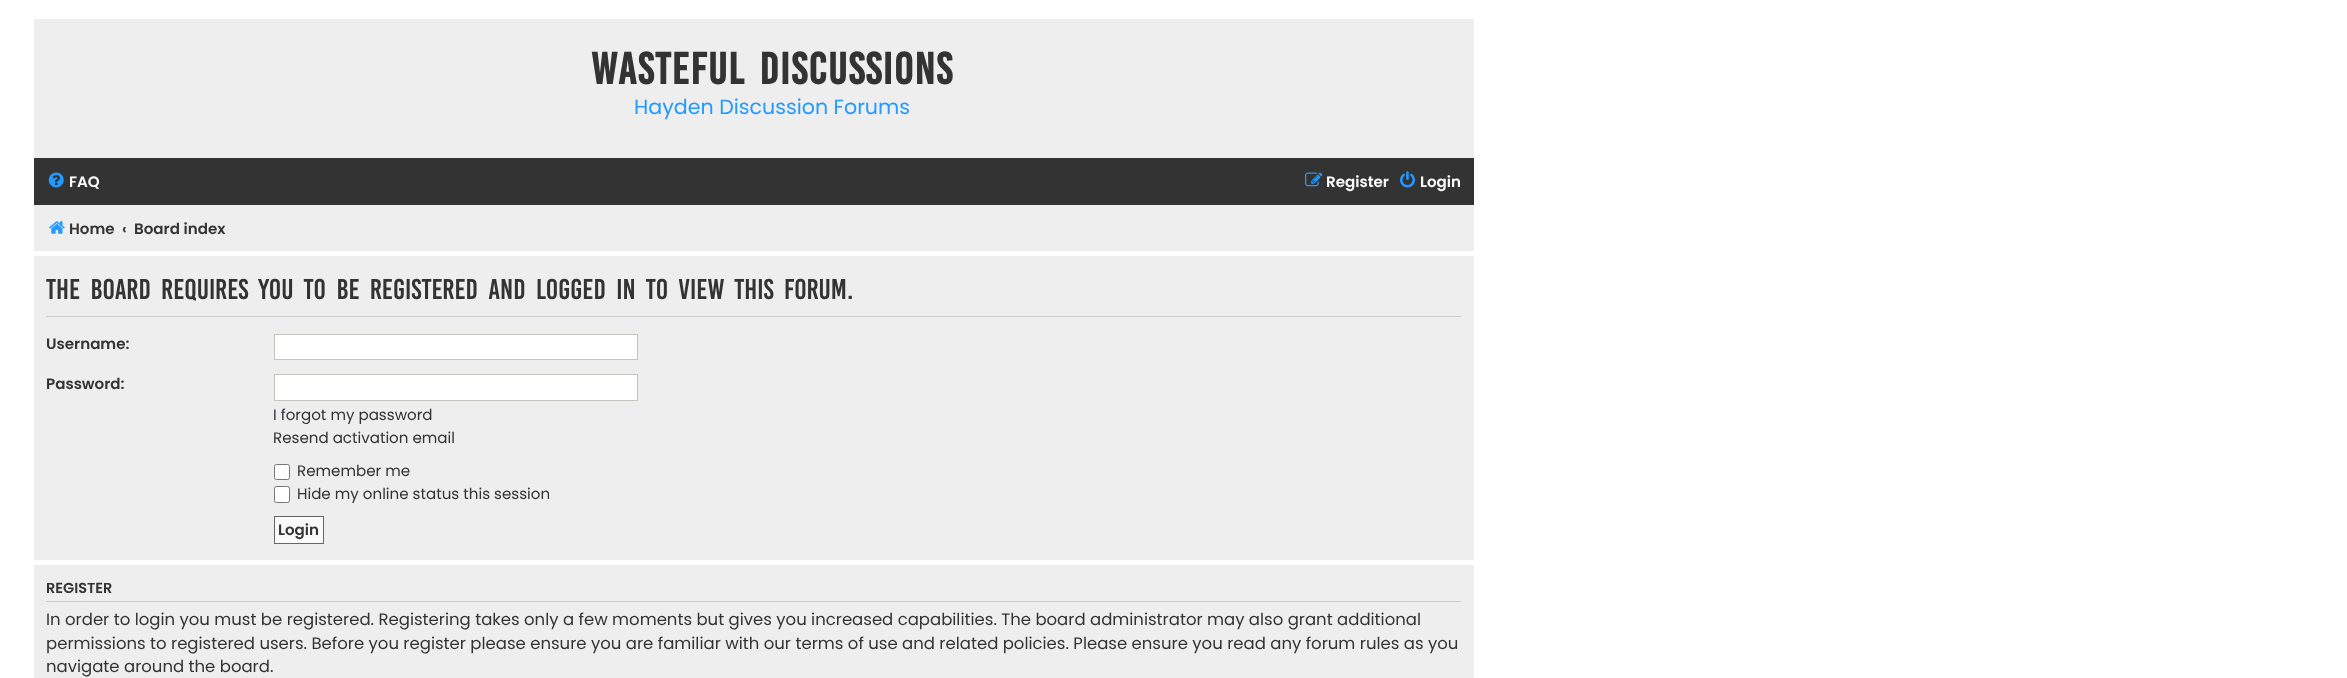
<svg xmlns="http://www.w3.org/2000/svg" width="2347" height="678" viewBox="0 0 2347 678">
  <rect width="100%" height="100%" fill="#ffffff"/>
  <rect x="34" y="19" width="1440" height="139" fill="#eeeeee"/>
  <text x="591" y="84" word-spacing="5" font-family="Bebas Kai" font-size="34.4" font-weight="bold" letter-spacing="1.25" fill="#333333">Wasteful Discussions</text>
  <text x="634" y="114" font-family="Poppins" font-size="20.6" fill="#239aff">Hayden Discussion Forums</text>
  <rect x="34" y="158" width="1440" height="47" fill="#333333"/>
  <image x="48" y="172" width="16" height="16" href="img1.png"/>
  <text x="69" y="187" font-family="Poppins" font-size="15.1" font-weight="600" fill="#ffffff">FAQ</text>
  <image x="1305" y="172" width="18" height="15" href="img2.png"/>
  <text x="1326" y="187" font-family="Poppins" font-size="15.1" font-weight="600" fill="#ffffff">Register</text>
  <image x="1400" y="171" width="15" height="17" href="img3.png"/>
  <text x="1420" y="187" font-family="Poppins" font-size="15.1" font-weight="600" fill="#ffffff">Login</text>
  <rect x="34" y="205" width="1440" height="46" fill="#eeeeee"/>
  <image x="49" y="221" width="16" height="13" href="img4.png"/>
  <text x="69" y="234" font-family="Poppins" font-size="15.1" font-weight="600" fill="#333333">Home</text>
  <text x="122" y="234" font-family="Poppins" font-size="15.1" font-weight="600" fill="#333333">‹</text>
  <text x="134" y="234" font-family="Poppins" font-size="15.1" font-weight="600" fill="#333333">Board index</text>
  <rect x="34" y="256" width="1440" height="304" fill="#eeeeee"/>
  <rect x="46" y="316" width="1415" height="1" fill="#cccccc"/>
  <text x="46" y="299" word-spacing="5" font-family="Bebas Kai" font-size="22" fill="#333333">The board requires you to be registered and logged in to view this forum.</text>
  <text x="46" y="349" font-family="Poppins" font-size="15.1" font-weight="600" fill="#333333">Username:</text>
  <rect x="274.5" y="334.5" width="363" height="25" fill="#ffffff" stroke="#c7c3bf"/>
  <text x="46" y="389" font-family="Poppins" font-size="15.1" font-weight="600" fill="#333333">Password:</text>
  <rect x="274.5" y="374.5" width="363" height="26" fill="#ffffff" stroke="#c7c3bf"/>
  <text x="273" y="420" font-family="Poppins" font-size="15.1" fill="#333333">I forgot my password</text>
  <text x="273" y="443" font-family="Poppins" font-size="15.1" fill="#333333">Resend activation email</text>
  <rect x="274.5" y="464.5" width="15" height="15" rx="2" fill="#ffffff" stroke="#767676"/>
  <text x="297" y="476" font-family="Poppins" font-size="15.1" fill="#333333">Remember me</text>
  <rect x="274.5" y="486.5" width="15" height="16" rx="2" fill="#ffffff" stroke="#767676"/>
  <text x="297" y="499" font-family="Poppins" font-size="15.1" fill="#333333">Hide my online status this session</text>
  <rect x="274.5" y="516.5" width="49" height="27" fill="#fafafa" stroke="#666666"/>
  <text x="278" y="535" font-family="Poppins" font-size="15.1" font-weight="600" fill="#333333">Login</text>
  <rect x="34" y="565" width="1440" height="113" fill="#eeeeee"/>
  <rect x="46" y="601" width="1415" height="1" fill="#cccccc"/>
  <text x="46" y="593" font-family="Poppins" font-size="14.5" font-weight="600" fill="#333333">REGISTER</text>
  <text x="46" y="625" font-family="Poppins" font-size="16.5" fill="#333333">In order to login you must be registered. Registering takes only a few moments but gives you increased capabilities. The board administrator may also grant additional</text>
  <text x="46" y="649" font-family="Poppins" font-size="16.5" fill="#333333">permissions to registered users. Before you register please ensure you are familiar with our terms of use and related policies. Please ensure you read any forum rules as you</text>
  <text x="46" y="672" font-family="Poppins" font-size="16.5" fill="#333333">navigate around the board.</text>
</svg>
